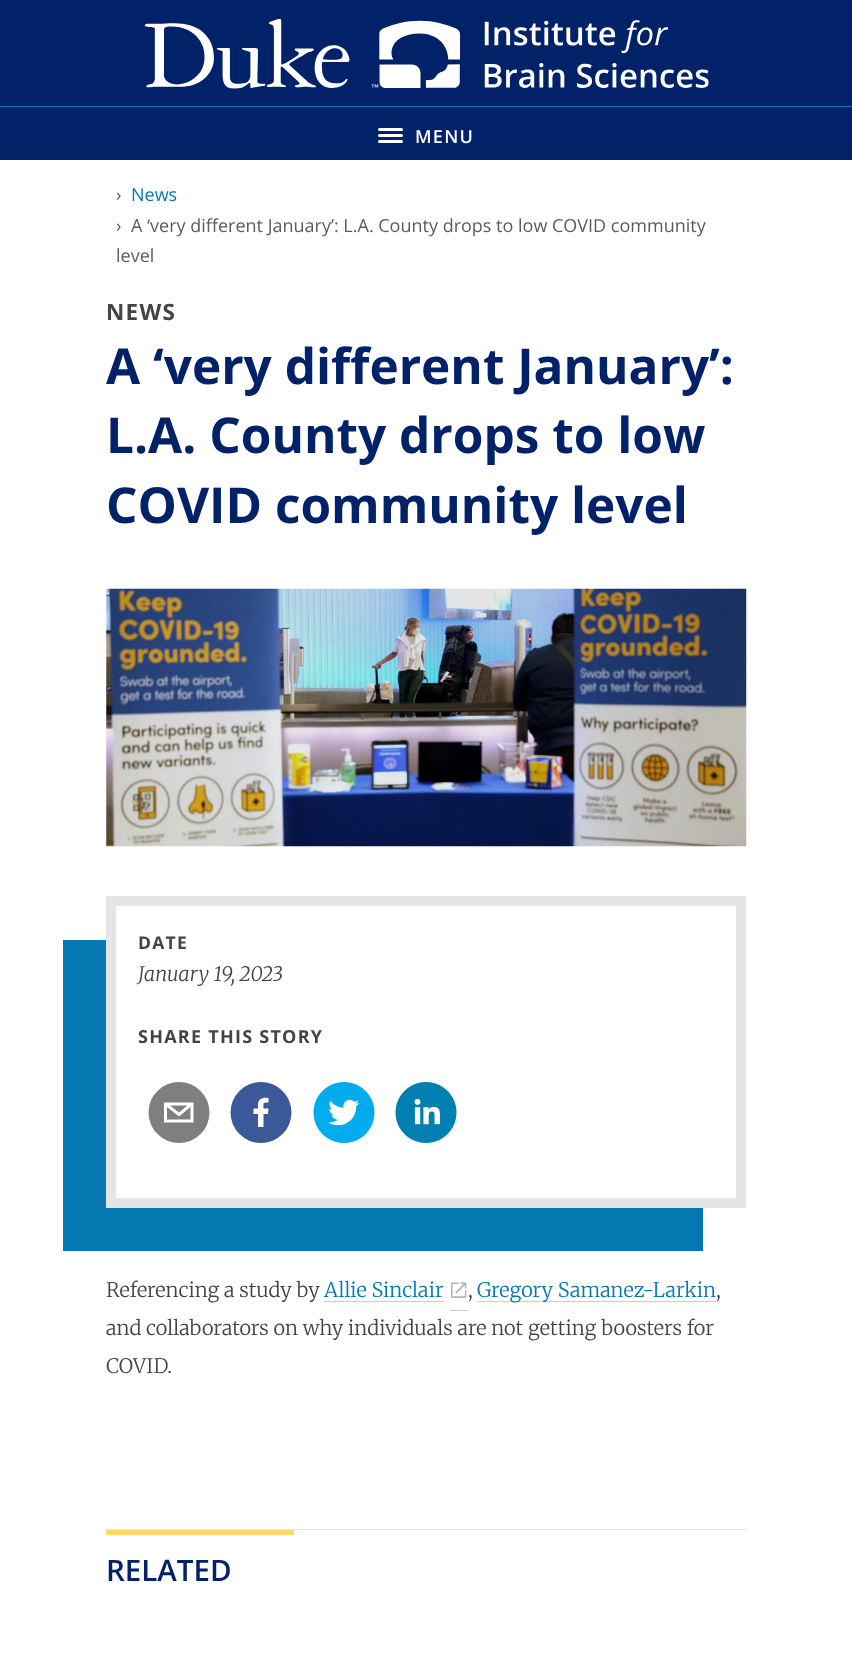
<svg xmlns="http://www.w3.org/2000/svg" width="852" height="1665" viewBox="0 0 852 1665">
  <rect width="100%" height="100%" fill="#ffffff"/>
  <rect x="0" y="0" width="852" height="160" fill="#012169"/>
  <image x="144" y="19" width="565" height="70" href="img1.png"/>
  <rect x="0" y="106" width="852" height="1" fill="#0577b1"/>
  <rect x="378" y="134" width="25" height="3" rx="1.5" fill="#ffffff"/>
  <rect x="378" y="128" width="25" height="3" rx="1.5" fill="#ffffff"/>
  <rect x="378" y="140" width="25" height="3" rx="1.5" fill="#ffffff"/>
  <text x="415" y="143" font-family="Open Sans" font-size="18" font-weight="600" letter-spacing="1.25" fill="#ffffff">MENU</text>
  <text x="116" y="201" font-family="Open Sans" font-size="18" fill="#595c5f">›</text>
  <text x="131" y="201" font-family="Open Sans" font-size="18" fill="#0577b1">News</text>
  <text x="116" y="232" font-family="Open Sans" font-size="18" fill="#595c5f">›</text>
  <text x="131" y="232" font-family="Open Sans" font-size="18" fill="#595c5f">A ‘very different January’: L.A. County drops to low COVID community</text>
  <text x="116" y="262" font-family="Open Sans" font-size="18" fill="#595c5f">level</text>
  <text x="106" y="320" font-family="Open Sans" font-size="22.5" font-weight="bold" letter-spacing="1.25" fill="#464343">NEWS</text>
  <text x="106" y="384" font-family="Open Sans" font-size="49.5" font-weight="bold" fill="#012169">A ‘very different January’:</text>
  <text x="106" y="453" font-family="Open Sans" font-size="49.5" font-weight="bold" fill="#012169">L.A. County drops to low</text>
  <text x="106" y="523" font-family="Open Sans" font-size="49.5" font-weight="bold" fill="#012169">COVID community level</text>
  <image x="106" y="588" width="641" height="259" href="img2.png"/>
  <path d="M63 940V1251H703V1208H106V940Z" fill="#0577b1"/>
  <rect x="111" y="901" width="630" height="302" fill="none" stroke="#e5e5e5" stroke-width="10"/>
  <text x="138" y="949" font-family="Open Sans" font-size="17.5" font-weight="bold" letter-spacing="1.25" fill="#464343">DATE</text>
  <text x="138" y="981" font-family="Merriweather" font-size="20" font-weight="300" font-style="italic" fill="#464343">January 19</text>
  <text x="231" y="981" font-family="Merriweather" font-size="20" font-weight="300" font-style="italic" fill="#464343">, 2023</text>
  <text x="138" y="1043" font-family="Open Sans" font-size="18" font-weight="bold" letter-spacing="1.25" fill="#464343">SHARE THIS STORY</text>
  <circle cx="179" cy="1112.5" r="30.5" fill="#7f7f7f"/>
  <path d="M164 1102.5V1122.5H193.5V1102.5ZM187.5 1105.5L179 1112.5L170 1105.5ZM167 1119.5V1107L179 1116.5L190.5 1107V1119.5Z" fill="#ffffff"/>
  <circle cx="261" cy="1112.5" r="30.5" fill="#3b5998"/>
  <path d="M263.5 1127V1114H268L268.5 1108.5H263.5C263.5 1103 262.5 1102.5 268.5 1102.5V1098C264.5 1097 259 1098 258 1103V1108.5H253.5V1114H258V1127Z" fill="#ffffff"/>
  <image x="313" y="1082" width="62" height="61" href="img3.png"/>
  <image x="395" y="1082" width="62" height="61" href="img4.png"/>
  <text x="106" y="1297" font-family="Merriweather" font-size="20" font-weight="300" fill="#464343">Referencing a study by</text>
  <rect x="324" y="1301" width="120" height="1" fill="#cccccc"/>
  <rect x="450" y="1310" width="18" height="1" fill="#cccccc"/>
  <text x="324" y="1297" font-family="Merriweather" font-size="20" font-weight="300" fill="#0577b1">Allie Sinclair</text>
  <image x="451" y="1282" width="16" height="16" href="img5.png"/>
  <text x="468" y="1297" font-family="Merriweather" font-size="20" font-weight="300" fill="#464343">,</text>
  <rect x="478" y="1301" width="238" height="1" fill="#cccccc"/>
  <text x="477" y="1297" font-family="Merriweather" font-size="20" font-weight="300" fill="#0577b1">Gregory Samanez-Larkin</text>
  <text x="716" y="1297" font-family="Merriweather" font-size="20" font-weight="300" fill="#464343">,</text>
  <text x="106" y="1335" font-family="Merriweather" font-size="20" font-weight="300" fill="#464343">and collaborators on why individuals are not getting boosters for</text>
  <text x="106" y="1373" font-family="Merriweather" font-size="20" font-weight="300" fill="#464343">COVID.</text>
  <rect x="106" y="1529" width="640" height="1" fill="#e5e5e5"/>
  <rect x="106" y="1530" width="188" height="5" fill="#ffd960"/>
  <text x="106" y="1581" font-family="Open Sans" font-size="29.5" font-weight="600" fill="#012169">RELATED</text>
</svg>
